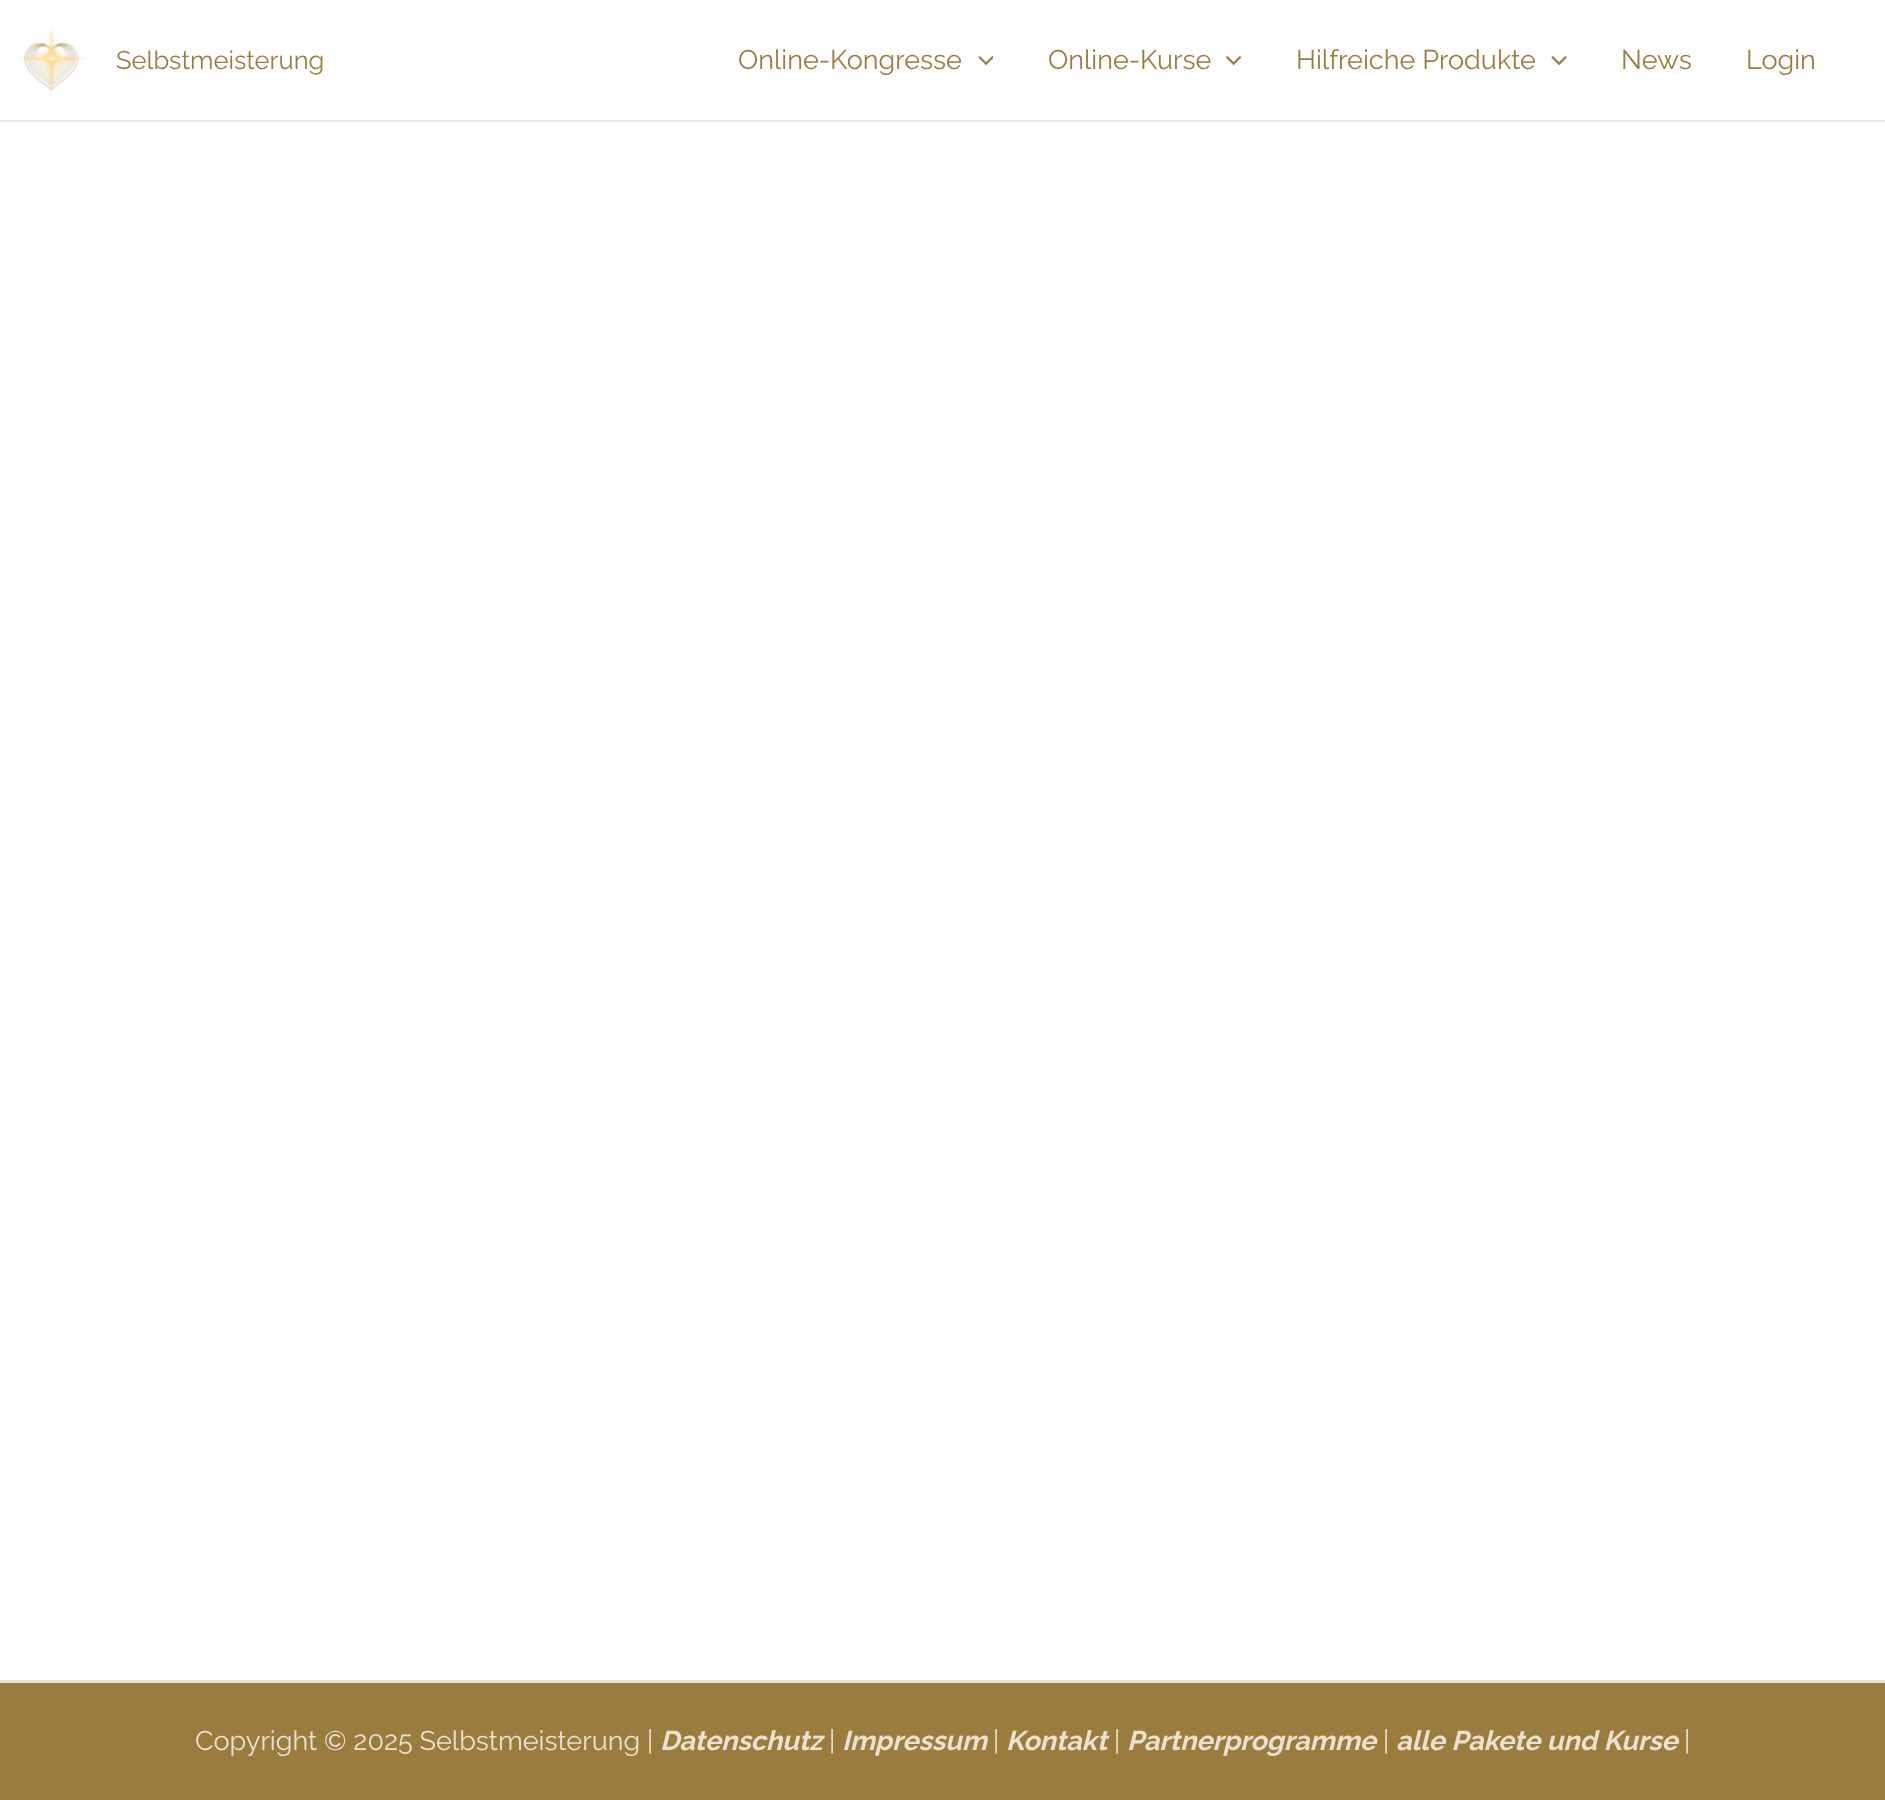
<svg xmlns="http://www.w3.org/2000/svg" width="1885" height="1800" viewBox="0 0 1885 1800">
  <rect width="100%" height="100%" fill="#ffffff"/>
  <rect x="0" y="120" width="1885" height="2" fill="#eaeaea"/>
  <image x="15" y="21" width="74" height="76" href="img1.png"/>
  <text x="116" y="69" font-family="Raleway" font-size="25.5" fill="#9a7c3f">Selbstmeisterung</text>
  <text x="738" y="69" font-family="Raleway" font-size="27" fill="#9a7c3f">Online-Kongresse</text>
  <image x="978" y="56" width="15" height="10" href="img2.png"/>
  <text x="1048" y="69" font-family="Raleway" font-size="27" fill="#9a7c3f">Online-Kurse</text>
  <image x="1226" y="56" width="16" height="10" href="img3.png"/>
  <text x="1296" y="69" font-family="Raleway" font-size="27" fill="#9a7c3f">Hilfreiche Produkte</text>
  <image x="1551" y="56" width="16" height="10" href="img4.png"/>
  <text x="1621" y="69" font-family="Raleway" font-size="27" fill="#9a7c3f">News</text>
  <text x="1746" y="69" font-family="Raleway" font-size="27" fill="#9a7c3f">Login</text>
  <rect x="0" y="1683" width="1885" height="117" fill="#9a7c3f"/>
  <rect x="0" y="1680" width="1885" height="3" fill="#ebe1cf"/>
  <text x="195" y="1750" font-family="Raleway" font-size="27" fill="#ebe1cf">Copyright © 2025 Selbstmeisterung |</text>
  <text x="660" y="1750" font-family="Raleway" font-size="27" font-weight="bold" font-style="italic" fill="#ebe1cf">Datenschutz</text>
  <text x="829" y="1750" font-family="Raleway" font-size="27" fill="#ebe1cf">|</text>
  <text x="842" y="1750" font-family="Raleway" font-size="27" font-weight="bold" font-style="italic" fill="#ebe1cf">Impressum</text>
  <text x="993" y="1750" font-family="Raleway" font-size="27" fill="#ebe1cf">|</text>
  <text x="1006" y="1750" font-family="Raleway" font-size="27" font-weight="bold" font-style="italic" fill="#ebe1cf">Kontakt</text>
  <text x="1114" y="1750" font-family="Raleway" font-size="27" fill="#ebe1cf">|</text>
  <text x="1127" y="1750" font-family="Raleway" font-size="27" font-weight="bold" font-style="italic" fill="#ebe1cf">Partnerprogramme</text>
  <text x="1383" y="1750" font-family="Raleway" font-size="27" fill="#ebe1cf">|</text>
  <text x="1396" y="1750" font-family="Raleway" font-size="27" font-weight="bold" font-style="italic" fill="#ebe1cf">alle Pakete und Kurse</text>
  <text x="1684" y="1750" font-family="Raleway" font-size="27" fill="#ebe1cf">|</text>
</svg>
